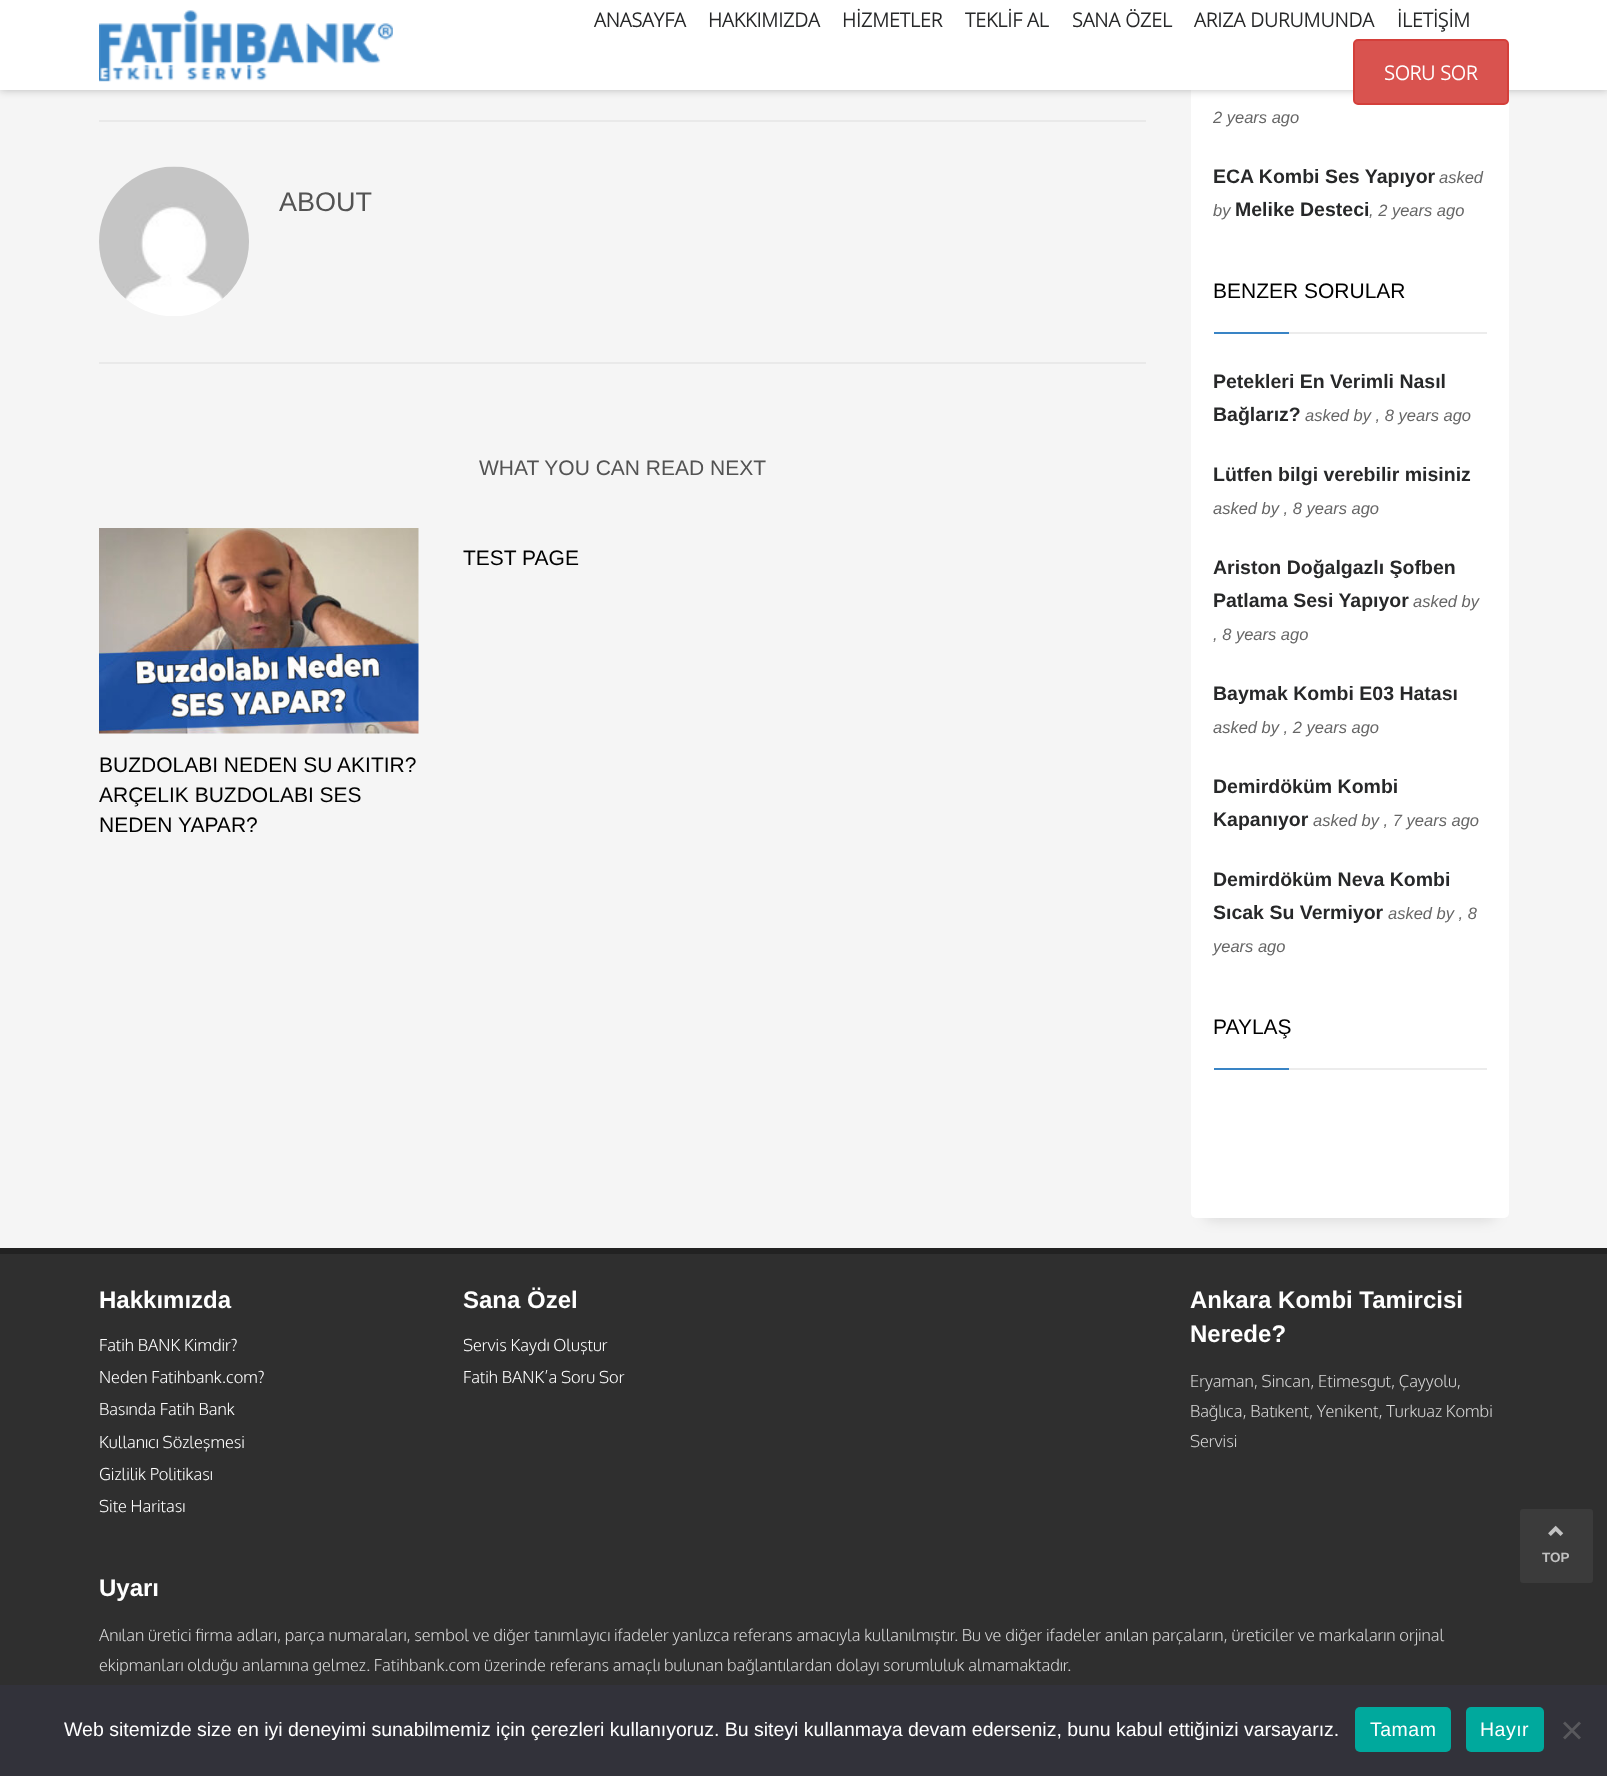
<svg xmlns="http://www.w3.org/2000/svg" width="1607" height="1776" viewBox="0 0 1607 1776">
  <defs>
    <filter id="blur1" x="-50%" y="-200%" width="200%" height="500%"><feGaussianBlur stdDeviation="7.5"/></filter>
    <filter id="blur2" x="-50%" y="-200%" width="200%" height="500%"><feGaussianBlur stdDeviation="4"/></filter>
    <clipPath id="clip1"><rect x="464" y="1332" width="318" height="66"/></clipPath>
  </defs>
  <rect width="100%" height="100%" fill="#f5f5f5"/>
  <rect x="1206" y="-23" width="288" height="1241" fill="#000000" fill-opacity="0.15" filter="url(#blur1)"/>
  <rect x="1191" y="-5" width="318" height="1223" rx="5" fill="#ffffff"/>
  <rect x="0" y="0" width="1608" height="90" fill="#000000" fill-opacity="0.25" filter="url(#blur2)"/>
  <rect x="0" y="0" width="1607" height="90" fill="#ffffff"/>
  <image x="99" y="10" width="294" height="72" href="img1.png"/>
  <text x="594" y="27" font-family="Open Sans" font-size="19.5" font-weight="bold" fill="#272829">ANASAYFA</text>
  <text x="708" y="27" font-family="Open Sans" font-size="19.5" font-weight="bold" fill="#272829">HAKKIMIZDA</text>
  <text x="842" y="27" font-family="Open Sans" font-size="19.5" font-weight="bold" fill="#272829">HİZMETLER</text>
  <text x="965" y="27" font-family="Open Sans" font-size="19.5" font-weight="bold" fill="#272829">TEKLİF AL</text>
  <text x="1072" y="27" font-family="Open Sans" font-size="19.5" font-weight="bold" fill="#272829">SANA ÖZEL</text>
  <text x="1194" y="27" font-family="Open Sans" font-size="19.5" font-weight="bold" fill="#272829">ARIZA DURUMUNDA</text>
  <text x="1397" y="27" font-family="Open Sans" font-size="19.5" font-weight="bold" fill="#272829">İLETİŞİM</text>
  <rect x="1354" y="40" width="154" height="64" rx="4" fill="#d9534f" stroke="#d43f3a" stroke-width="2"/>
  <text x="1384" y="80" font-family="Open Sans" font-size="19.5" font-weight="bold" fill="#ffffff">SORU SOR</text>
  <rect x="99" y="120" width="1047" height="2" fill="#e9e9e9"/>
  <rect x="99" y="362" width="1047" height="2" fill="#e9e9e9"/>
  <image x="99" y="166" width="150" height="150" href="img2.png"/>
  <text x="279" y="211" font-family="Liberation Sans" font-size="27" fill="#535353">ABOUT</text>
  <text x="479" y="475" font-family="Liberation Sans" font-size="21" fill="#535353">WHAT YOU CAN READ NEXT</text>
  <text x="463" y="565" font-family="Liberation Sans" font-size="21" fill="#000000">TEST PAGE</text>
  <image x="99" y="528" width="320" height="206" href="img3.png"/>
  <text x="99" y="772" font-family="Liberation Sans" font-size="21" fill="#000000">BUZDOLABI NEDEN SU AKITIR?</text>
  <text x="99" y="802" font-family="Liberation Sans" font-size="21" fill="#000000">ARÇELIK BUZDOLABI SES</text>
  <text x="99" y="832" font-family="Liberation Sans" font-size="21" fill="#000000">NEDEN YAPAR?</text>
  <text x="1213" y="123" font-family="Liberation Sans" font-size="16.5" font-style="italic" fill="#666666">2 years ago</text>
  <text x="1213" y="183" font-family="Liberation Sans" font-size="19.5" font-weight="bold" fill="#272829">ECA Kombi Ses Yapıyor</text>
  <text x="1439" y="183" font-family="Liberation Sans" font-size="16.5" font-style="italic" fill="#666666">asked</text>
  <text x="1213" y="216" font-family="Liberation Sans" font-size="16.5" font-style="italic" fill="#666666">by</text>
  <text x="1235" y="216" font-family="Liberation Sans" font-size="19.5" font-weight="bold" fill="#272829">Melike Desteci</text>
  <text x="1369" y="216" font-family="Liberation Sans" font-size="16.5" font-style="italic" fill="#666666">, 2 years ago</text>
  <text x="1213" y="298" font-family="Liberation Sans" font-size="21" fill="#000000">BENZER SORULAR</text>
  <rect x="1214" y="332" width="75" height="2" fill="#3984c5"/>
  <rect x="1289" y="332" width="198" height="2" fill="#ececec"/>
  <text x="1213" y="388" font-family="Liberation Sans" font-size="19.5" font-weight="bold" fill="#272829">Petekleri En Verimli Nasıl</text>
  <text x="1213" y="421" font-family="Liberation Sans" font-size="19.5" font-weight="bold" fill="#272829">Bağlarız?</text>
  <text x="1305" y="421" font-family="Liberation Sans" font-size="16.5" font-style="italic" fill="#666666">asked by , 8 years ago</text>
  <text x="1213" y="481" font-family="Liberation Sans" font-size="19.5" font-weight="bold" fill="#272829">Lütfen bilgi verebilir misiniz</text>
  <text x="1213" y="514" font-family="Liberation Sans" font-size="16.5" font-style="italic" fill="#666666">asked by , 8 years ago</text>
  <text x="1213" y="574" font-family="Liberation Sans" font-size="19.5" font-weight="bold" fill="#272829">Ariston Doğalgazlı Şofben</text>
  <text x="1213" y="607" font-family="Liberation Sans" font-size="19.5" font-weight="bold" fill="#272829">Patlama Sesi Yapıyor</text>
  <text x="1413" y="607" font-family="Liberation Sans" font-size="16.5" font-style="italic" fill="#666666">asked by</text>
  <text x="1213" y="640" font-family="Liberation Sans" font-size="16.5" font-style="italic" fill="#666666">, 8 years ago</text>
  <text x="1213" y="700" font-family="Liberation Sans" font-size="19.5" font-weight="bold" fill="#272829">Baymak Kombi E03 Hatası</text>
  <text x="1213" y="733" font-family="Liberation Sans" font-size="16.5" font-style="italic" fill="#666666">asked by , 2 years ago</text>
  <text x="1213" y="793" font-family="Liberation Sans" font-size="19.5" font-weight="bold" fill="#272829">Demirdöküm Kombi</text>
  <text x="1213" y="826" font-family="Liberation Sans" font-size="19.5" font-weight="bold" fill="#272829">Kapanıyor</text>
  <text x="1313" y="826" font-family="Liberation Sans" font-size="16.5" font-style="italic" fill="#666666">asked by , 7 years ago</text>
  <text x="1213" y="886" font-family="Liberation Sans" font-size="19.5" font-weight="bold" fill="#272829">Demirdöküm Neva Kombi</text>
  <text x="1213" y="919" font-family="Liberation Sans" font-size="19.5" font-weight="bold" fill="#272829">Sıcak Su Vermiyor</text>
  <text x="1388" y="919" font-family="Liberation Sans" font-size="16.5" font-style="italic" fill="#666666">asked by , 8</text>
  <text x="1213" y="952" font-family="Liberation Sans" font-size="16.5" font-style="italic" fill="#666666">years ago</text>
  <text x="1213" y="1034" font-family="Liberation Sans" font-size="21" fill="#000000">PAYLAŞ</text>
  <rect x="1214" y="1068" width="75" height="2" fill="#3984c5"/>
  <rect x="1289" y="1068" width="198" height="2" fill="#ececec"/>
  <rect x="0" y="1254" width="1607" height="431" fill="#2f2f2f"/>
  <rect x="0" y="1248" width="1607" height="6" fill="#222222"/>
  <text x="99" y="1308" font-family="Liberation Sans" font-size="24" font-weight="bold" fill="#ffffff">Hakkımızda</text>
  <text x="99" y="1351" font-family="Oxygen" font-size="16.5" font-weight="300" fill="#ffffff">Fatih BANK Kimdir?</text>
  <text x="99" y="1383" font-family="Oxygen" font-size="16.5" font-weight="300" fill="#ffffff">Neden Fatihbank.com?</text>
  <text x="99" y="1415" font-family="Oxygen" font-size="16.5" font-weight="300" fill="#ffffff">Basında Fatih Bank</text>
  <text x="99" y="1448" font-family="Oxygen" font-size="16.5" font-weight="300" fill="#ffffff">Kullanıcı Sözleşmesi</text>
  <text x="99" y="1480" font-family="Oxygen" font-size="16.5" font-weight="300" fill="#ffffff">Gizlilik Politikası</text>
  <text x="99" y="1512" font-family="Oxygen" font-size="16.5" font-weight="300" fill="#ffffff">Site Haritası</text>
  <text x="463" y="1308" font-family="Liberation Sans" font-size="24" font-weight="bold" fill="#ffffff">Sana Özel</text>
  <g clip-path="url(#clip1)">
    <text x="463" y="1351" font-family="Oxygen" font-size="16.5" font-weight="300" fill="#ffffff">Servis Kaydı Oluştur</text>
  </g>
  <text x="463" y="1383" font-family="Oxygen" font-size="16.5" font-weight="300" fill="#ffffff">Fatih BANK’a Soru Sor</text>
  <text x="1190" y="1308" font-family="Liberation Sans" font-size="24" font-weight="bold" fill="#ffffff">Ankara Kombi Tamircisi</text>
  <text x="1190" y="1342" font-family="Liberation Sans" font-size="24" font-weight="bold" fill="#ffffff">Nerede?</text>
  <text x="1190" y="1387" font-family="Oxygen" font-size="16.5" font-weight="300" fill="#d5d5d5">Eryaman, Sincan, Etimesgut, Çayyolu,</text>
  <text x="1190" y="1417" font-family="Oxygen" font-size="16.5" font-weight="300" fill="#d5d5d5">Bağlıca, Batıkent, Yenikent, Turkuaz Kombi</text>
  <text x="1190" y="1447" font-family="Oxygen" font-size="16.5" font-weight="300" fill="#d5d5d5">Servisi</text>
  <text x="99" y="1596" font-family="Liberation Sans" font-size="24" font-weight="bold" fill="#ffffff">Uyarı</text>
  <text x="99" y="1641" font-family="Oxygen" font-size="16.5" font-weight="300" fill="#d5d5d5">Anılan üretici firma adları, parça numaraları, sembol ve diğer tanımlayıcı ifadeler yanlızca referans amacıyla kullanılmıştır. Bu ve diğer ifadeler anılan parçaların, üreticiler ve markaların orjinal</text>
  <text x="99" y="1671" font-family="Oxygen" font-size="16.5" font-weight="300" fill="#d5d5d5">ekipmanları olduğu anlamına gelmez. Fatihbank.com üzerinde referans amaçlı bulunan bağlantılardan dolayı sorumluluk almamaktadır.</text>
  <rect x="1520" y="1509" width="73" height="74" rx="3" fill="#3b3b3b"/>
  <image x="1548" y="1525" width="16" height="11" href="img4.png"/>
  <text x="1542" y="1562" font-family="Liberation Sans" font-size="13.5" font-weight="bold" fill="#c1c1c1">TOP</text>
  <rect x="0" y="1685" width="1607" height="91" fill="#32323a"/>
  <text x="64" y="1736" font-family="Liberation Sans" font-size="19.5" fill="#ffffff">Web sitemizde size en iyi deneyimi sunabilmemiz için çerezleri kullanıyoruz. Bu siteyi kullanmaya devam ederseniz, bunu kabul ettiğinizi varsayarız.</text>
  <rect x="1355" y="1707" width="96" height="45" rx="5" fill="#00a99d"/>
  <text x="1370" y="1736" font-family="Liberation Sans" font-size="19.5" letter-spacing="0.5" fill="#ffffff">Tamam</text>
  <rect x="1466" y="1707" width="78" height="45" rx="5" fill="#00a99d"/>
  <text x="1480" y="1736" font-family="Liberation Sans" font-size="19.5" letter-spacing="0.5" fill="#ffffff">Hayır</text>
  <path d="M1579 1721.5L1581 1723.5L1565 1739.5L1563 1737.5Z" fill="#59595d"/>
  <path d="M1563 1723.5L1565 1721.5L1581 1737.5L1579 1739.5Z" fill="#59595d"/>
</svg>
